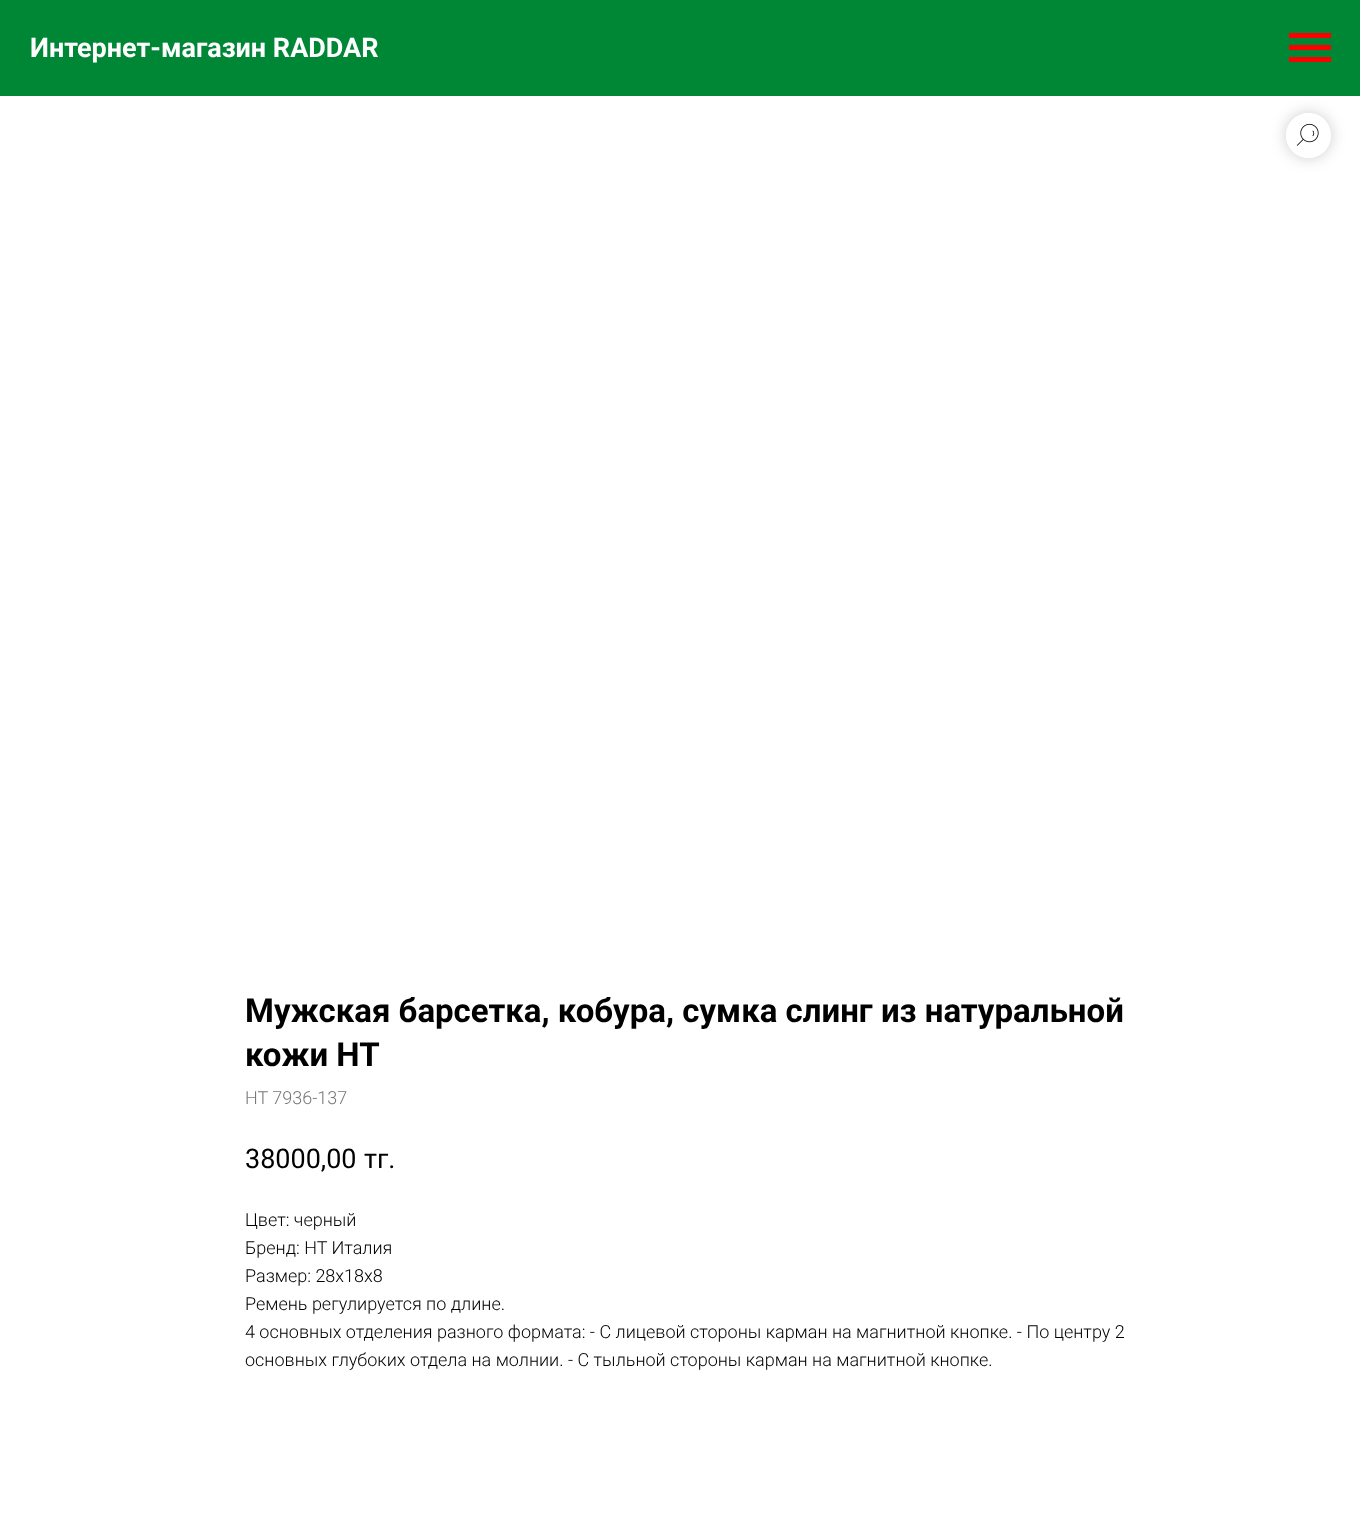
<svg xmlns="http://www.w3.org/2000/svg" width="1360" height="1539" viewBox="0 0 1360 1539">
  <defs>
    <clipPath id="clip1"><path d="M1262 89H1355V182H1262ZM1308.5 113C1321 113 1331 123 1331 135.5C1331 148 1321 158 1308.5 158C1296 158 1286 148 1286 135.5C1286 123 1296 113 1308.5 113Z" clip-rule="evenodd"/></clipPath>
    <filter id="blur1" x="-50%" y="-200%" width="200%" height="500%"><feGaussianBlur stdDeviation="7.5"/></filter>
  </defs>
  <rect width="100%" height="100%" fill="#ffffff"/>
  <rect x="0" y="0" width="1360" height="96" fill="#008736"/>
  <text x="30" y="57" font-family="Roboto" font-size="27" font-weight="bold" fill="#ffffff">Интернет-магазин RADDAR</text>
  <rect x="1289" y="33" width="42" height="5" fill="#ff0000"/>
  <rect x="1289" y="45" width="42" height="5" fill="#ff0000"/>
  <rect x="1289" y="57" width="42" height="5" fill="#ff0000"/>
  <g clip-path="url(#clip1)">
    <rect x="1286" y="113" width="45" height="45" rx="22.5" fill="#000000" fill-opacity="0.2" filter="url(#blur1)"/>
  </g>
  <circle cx="1308.5" cy="135.5" r="22.5" fill="#ffffff" fill-opacity="0.8"/>
  <image x="1296" y="123" width="23" height="23" href="img1.png"/>
  <text x="245" y="1022" font-family="Roboto" font-size="33" font-weight="bold" fill="#000000">Мужская барсетка, кобура, сумка слинг из натуральной</text>
  <text x="245" y="1066" font-family="Roboto" font-size="33" font-weight="bold" fill="#000000">кожи НТ</text>
  <text x="245" y="1104" font-family="Roboto" font-size="18" font-weight="300" fill="#777777">HT 7936-137</text>
  <text x="245" y="1168" font-family="Roboto" font-size="27" fill="#000000">38000,00</text>
  <text x="364" y="1168" font-family="Roboto" font-size="27" fill="#000000">тг.</text>
  <text x="245" y="1226" font-family="Roboto" font-size="18" font-weight="300" fill="#000000">Цвет: черный</text>
  <text x="245" y="1254" font-family="Roboto" font-size="18" font-weight="300" fill="#000000">Бренд: HT Италия</text>
  <text x="245" y="1282" font-family="Roboto" font-size="18" font-weight="300" fill="#000000">Размер: 28х18х8</text>
  <text x="245" y="1310" font-family="Roboto" font-size="18" font-weight="300" fill="#000000">Ремень регулируется по длине.</text>
  <text x="245" y="1338" font-family="Roboto" font-size="18" font-weight="300" fill="#000000">4 основных отделения разного формата: - С лицевой стороны карман на магнитной кнопке. - По центру 2</text>
  <text x="245" y="1366" font-family="Roboto" font-size="18" font-weight="300" fill="#000000">основных глубоких отдела на молнии. - С тыльной стороны карман на магнитной кнопке.</text>
</svg>
